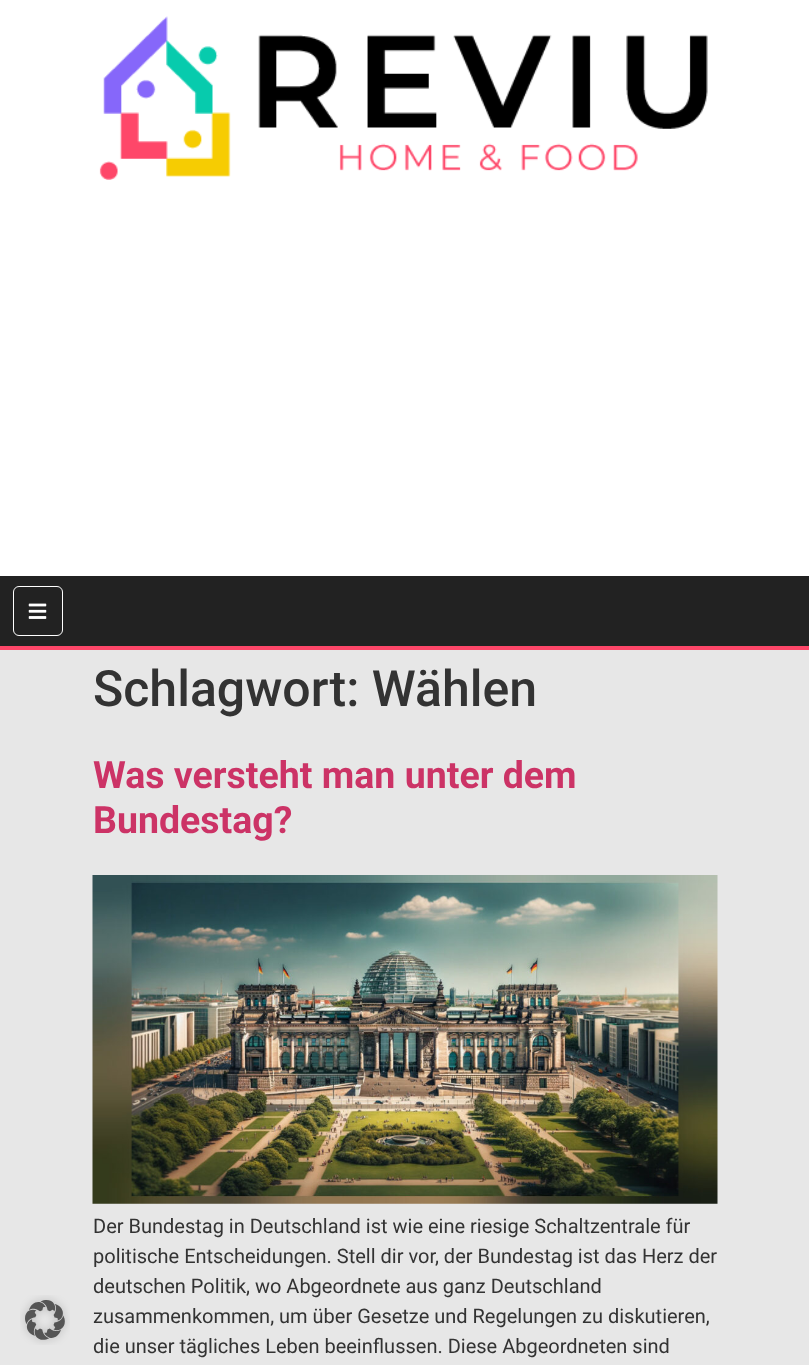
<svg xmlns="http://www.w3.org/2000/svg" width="809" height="1365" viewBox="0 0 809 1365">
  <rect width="100%" height="100%" fill="#e7e7e7"/>
  <rect x="0" y="0" width="809" height="576" fill="#ffffff"/>
  <image x="99" y="16" width="609" height="164" href="img1.png"/>
  <rect x="0" y="576" width="809" height="70" fill="#222222"/>
  <rect x="0" y="646" width="809" height="4" fill="#fe4769"/>
  <rect x="13.5" y="586.5" width="49" height="49" rx="5.5" fill="none" stroke="#ffffff"/>
  <image x="28" y="603" width="19" height="16" href="img2.png"/>
  <image x="20" y="1295" width="50" height="50" href="img3.png"/>
  <text x="93" y="706" font-family="Roboto" font-size="50" font-weight="500" fill="#333333">Schlagwort: Wählen</text>
  <text x="93" y="788" font-family="Roboto" font-size="37.5" font-weight="bold" fill="#cc3366">Was versteht man unter dem</text>
  <text x="93" y="833" font-family="Roboto" font-size="37.5" font-weight="bold" fill="#cc3366">Bundestag?</text>
  <image x="92" y="875" width="626" height="329" href="img4.png"/>
  <text x="93" y="1233" font-family="Roboto" font-size="20" fill="#333333">Der Bundestag in Deutschland ist wie eine riesige Schaltzentrale für</text>
  <text x="93" y="1263" font-family="Roboto" font-size="20" fill="#333333">politische Entscheidungen. Stell dir vor, der Bundestag ist das Herz der</text>
  <text x="93" y="1293" font-family="Roboto" font-size="20" fill="#333333">deutschen Politik, wo Abgeordnete aus ganz Deutschland</text>
  <text x="93" y="1323" font-family="Roboto" font-size="20" fill="#333333">zusammenkommen, um über Gesetze und Regelungen zu diskutieren,</text>
  <text x="93" y="1353" font-family="Roboto" font-size="20" fill="#333333">die unser tägliches Leben beeinflussen. Diese Abgeordneten sind</text>
</svg>
